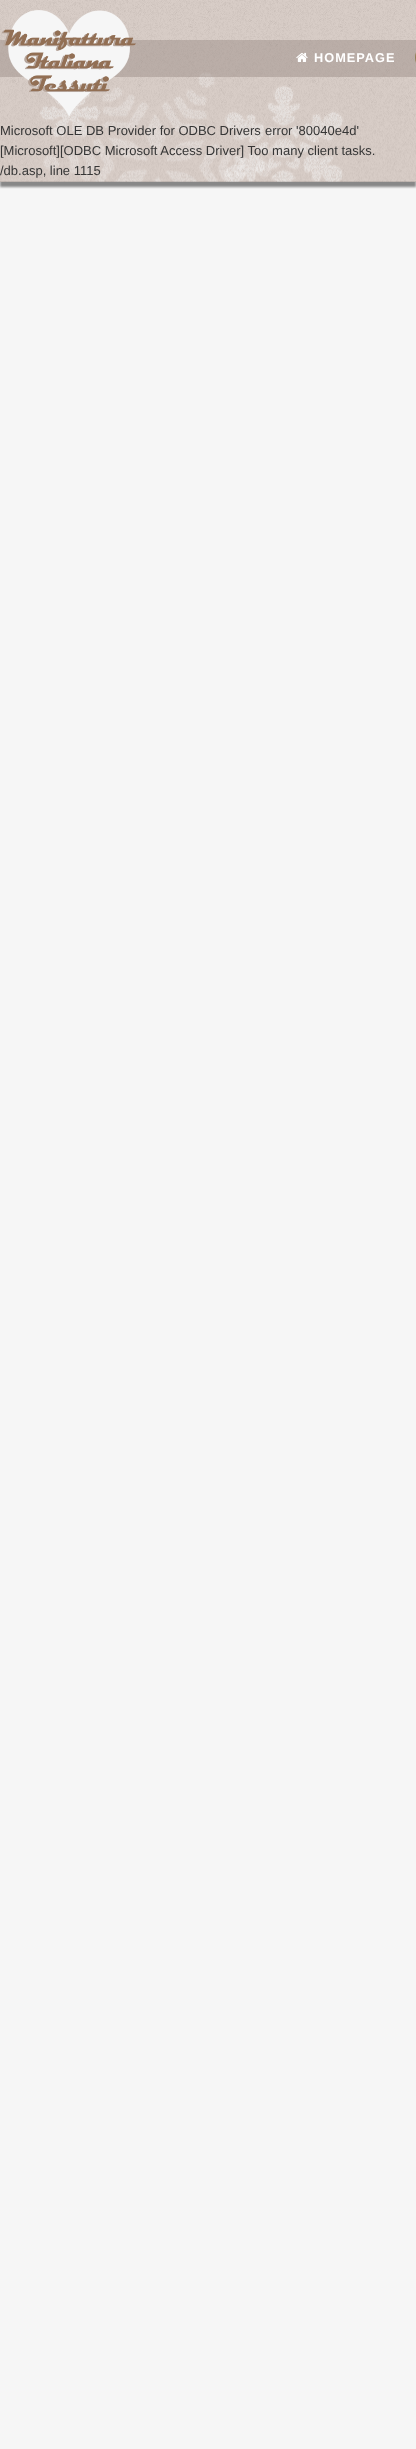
<svg xmlns="http://www.w3.org/2000/svg" width="416" height="2449" viewBox="0 0 416 2449">
  <defs>
    <filter id="blur1" x="-50%" y="-200%" width="200%" height="500%"><feGaussianBlur stdDeviation="1"/></filter>
  </defs>
  <rect width="100%" height="100%" fill="#f6f6f6"/>
  <rect x="0" y="5" width="416" height="182" fill="#888888" filter="url(#blur1)"/>
  <rect x="0" y="0" width="416" height="182" fill="#d3c6bf"/>
  <image x="0" y="0" width="416" height="182" href="img1.png"/>
  <rect x="0" y="181" width="416" height="1" fill="#000000" fill-opacity="0.1"/>
  <rect x="0" y="40" width="416" height="37" fill="#9d9089" fill-opacity="0.5"/>
  <image x="1" y="10" width="135" height="107" href="img2.png"/>
  <image x="296" y="52" width="12" height="10" href="img3.png"/>
  <text x="314" y="62" font-family="Liberation Sans" font-size="12.75" font-weight="bold" letter-spacing="1" fill="#ffffff">HOMEPAGE</text>
  <path d="M428.5 44H416V71H428.5C421 71 415 65 415 57.5C415 50 421 44 428.5 44Z" fill="#927d54"/>
  <text x="0" y="135" font-family="Liberation Sans" font-size="13" fill="#363636">Microsoft OLE DB Provider for ODBC Drivers</text>
  <text x="265" y="135" font-family="Liberation Sans" font-size="13" fill="#363636">error '80040e4d'</text>
  <text x="0" y="155" font-family="Liberation Sans" font-size="13" fill="#363636">[Microsoft][ODBC Microsoft Access Driver] Too many client tasks.</text>
  <text x="0" y="175" font-family="Liberation Sans" font-size="13" fill="#363636">/db.asp, line 1115</text>
</svg>
